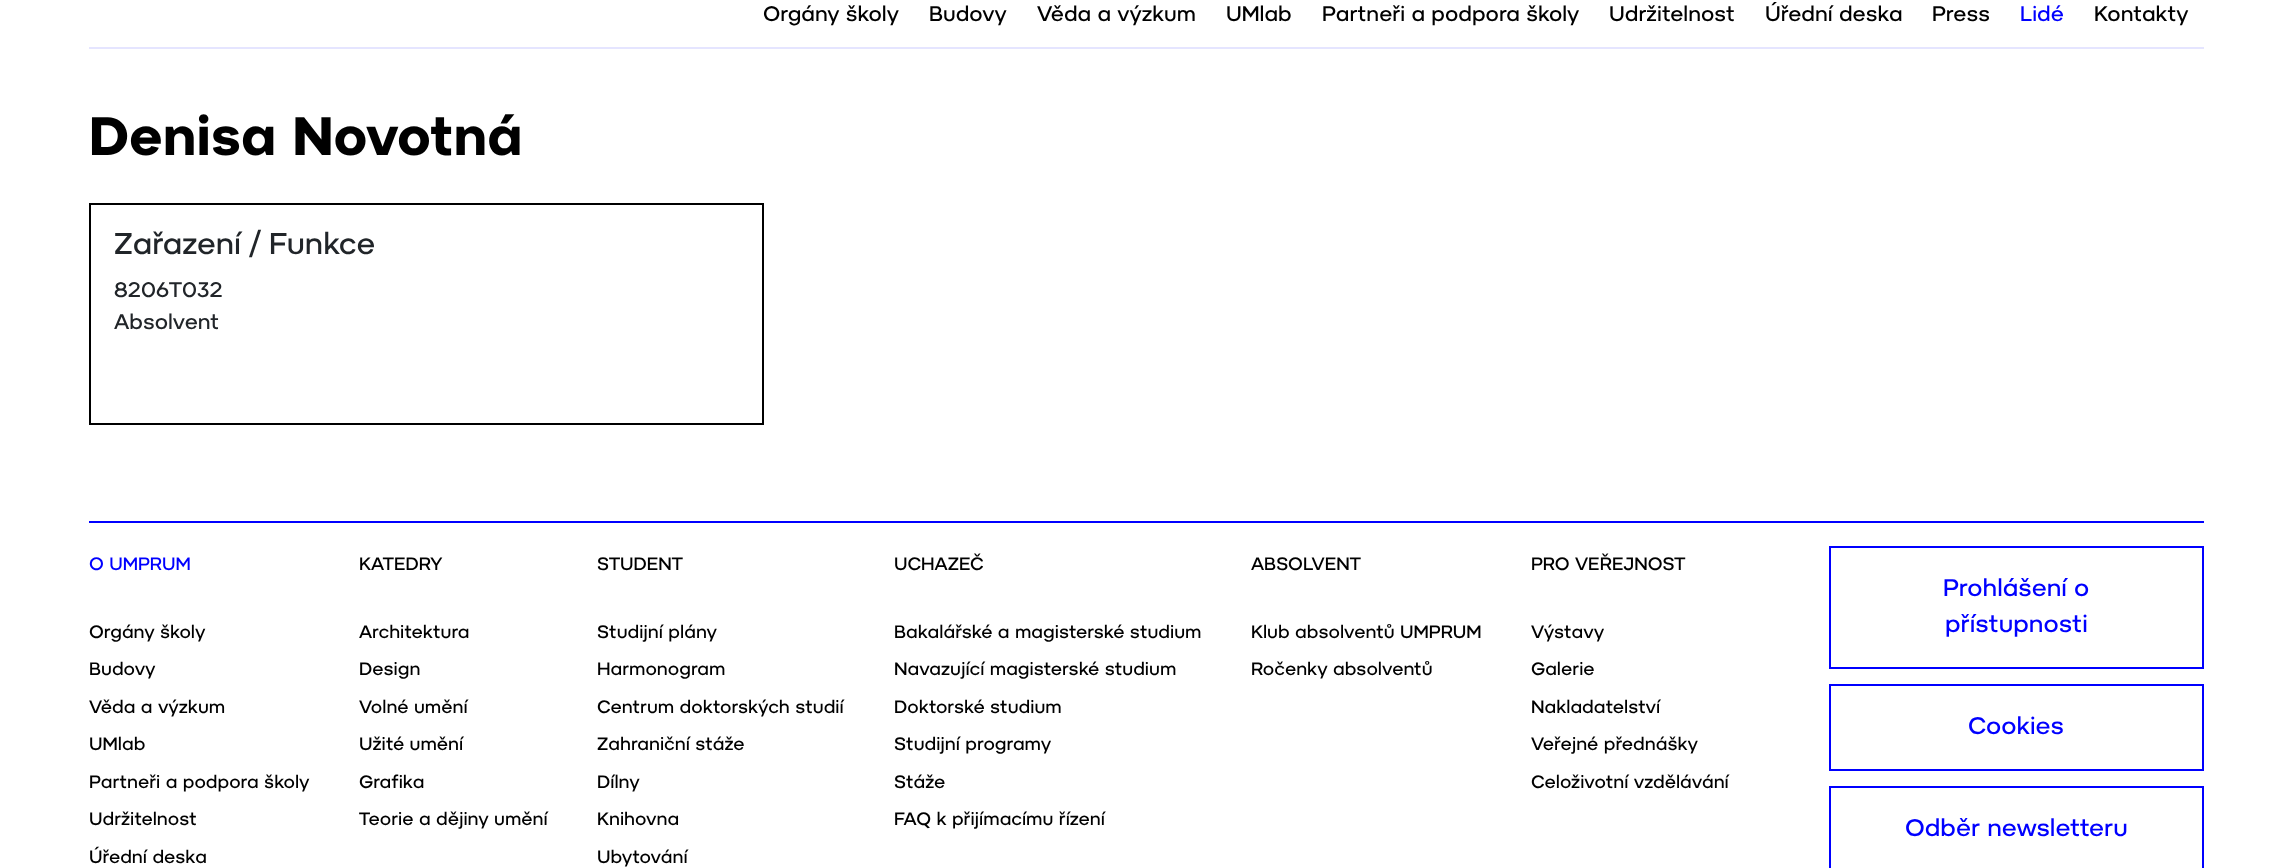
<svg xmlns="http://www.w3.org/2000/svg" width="2292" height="868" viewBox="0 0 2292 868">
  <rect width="100%" height="100%" fill="#ffffff"/>
  <rect x="89" y="47" width="2115" height="2" fill="#e5e5ff"/>
  <text x="763" y="21" font-family="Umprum" font-size="21" fill="#000000">Orgány školy</text>
  <text x="929" y="21" font-family="Umprum" font-size="21" fill="#000000">Budovy</text>
  <text x="1037" y="21" font-family="Umprum" font-size="21" fill="#000000">Věda a výzkum</text>
  <text x="1226" y="21" font-family="Umprum" font-size="21" fill="#000000">UMlab</text>
  <text x="1322" y="21" font-family="Umprum" font-size="21" fill="#000000">Partneři a podpora školy</text>
  <text x="1609" y="21" font-family="Umprum" font-size="21" fill="#000000">Udržitelnost</text>
  <text x="1765" y="21" font-family="Umprum" font-size="21" fill="#000000">Úřední deska</text>
  <text x="1932" y="21" font-family="Umprum" font-size="21" fill="#000000">Press</text>
  <text x="2020" y="21" font-family="Umprum" font-size="21" fill="#0000ff">Lidé</text>
  <text x="2094" y="21" font-family="Umprum" font-size="21" fill="#000000">Kontakty</text>
  <text x="89" y="155" font-family="Umprum" font-size="54" font-weight="bold" fill="#000000">Denisa Novotná</text>
  <rect x="90" y="204" width="673" height="220" fill="none" stroke="#000000" stroke-width="2"/>
  <text x="114" y="254" font-family="Umprum" font-size="30" fill="#212529">Zařazení / Funkce</text>
  <text x="114" y="297" font-family="Umprum" font-size="21" fill="#212529">8206T032</text>
  <text x="114" y="329" font-family="Umprum" font-size="21" fill="#212529">Absolvent</text>
  <rect x="89" y="521" width="2115" height="2" fill="#0000ff"/>
  <text x="89" y="570" font-family="Umprum" font-size="18" fill="#0000ff">O UMPRUM</text>
  <text x="89" y="638" font-family="Umprum" font-size="18" fill="#000000">Orgány školy</text>
  <text x="89" y="675" font-family="Umprum" font-size="18" fill="#000000">Budovy</text>
  <text x="89" y="713" font-family="Umprum" font-size="18" fill="#000000">Věda a výzkum</text>
  <text x="89" y="750" font-family="Umprum" font-size="18" fill="#000000">UMlab</text>
  <text x="89" y="788" font-family="Umprum" font-size="18" fill="#000000">Partneři a podpora školy</text>
  <text x="89" y="825" font-family="Umprum" font-size="18" fill="#000000">Udržitelnost</text>
  <text x="89" y="863" font-family="Umprum" font-size="18" fill="#000000">Úřední deska</text>
  <text x="359" y="570" font-family="Umprum" font-size="18" fill="#000000">KATEDRY</text>
  <text x="359" y="638" font-family="Umprum" font-size="18" fill="#000000">Architektura</text>
  <text x="359" y="675" font-family="Umprum" font-size="18" fill="#000000">Design</text>
  <text x="359" y="713" font-family="Umprum" font-size="18" fill="#000000">Volné umění</text>
  <text x="359" y="750" font-family="Umprum" font-size="18" fill="#000000">Užité umění</text>
  <text x="359" y="788" font-family="Umprum" font-size="18" fill="#000000">Grafika</text>
  <text x="359" y="825" font-family="Umprum" font-size="18" fill="#000000">Teorie a dějiny umění</text>
  <text x="597" y="570" font-family="Umprum" font-size="18" fill="#000000">STUDENT</text>
  <text x="597" y="638" font-family="Umprum" font-size="18" fill="#000000">Studijní plány</text>
  <text x="597" y="675" font-family="Umprum" font-size="18" fill="#000000">Harmonogram</text>
  <text x="597" y="713" font-family="Umprum" font-size="18" fill="#000000">Centrum doktorských studií</text>
  <text x="597" y="750" font-family="Umprum" font-size="18" fill="#000000">Zahraniční stáže</text>
  <text x="597" y="788" font-family="Umprum" font-size="18" fill="#000000">Dílny</text>
  <text x="597" y="825" font-family="Umprum" font-size="18" fill="#000000">Knihovna</text>
  <text x="597" y="863" font-family="Umprum" font-size="18" fill="#000000">Ubytování</text>
  <text x="894" y="570" font-family="Umprum" font-size="18" fill="#000000">UCHAZEČ</text>
  <text x="894" y="638" font-family="Umprum" font-size="18" fill="#000000">Bakalářské a magisterské studium</text>
  <text x="894" y="675" font-family="Umprum" font-size="18" fill="#000000">Navazující magisterské studium</text>
  <text x="894" y="713" font-family="Umprum" font-size="18" fill="#000000">Doktorské studium</text>
  <text x="894" y="750" font-family="Umprum" font-size="18" fill="#000000">Studijní programy</text>
  <text x="894" y="788" font-family="Umprum" font-size="18" fill="#000000">Stáže</text>
  <text x="894" y="825" font-family="Umprum" font-size="18" fill="#000000">FAQ k přijímacímu řízení</text>
  <text x="1251" y="570" font-family="Umprum" font-size="18" fill="#000000">ABSOLVENT</text>
  <text x="1251" y="638" font-family="Umprum" font-size="18" fill="#000000">Klub absolventů UMPRUM</text>
  <text x="1251" y="675" font-family="Umprum" font-size="18" fill="#000000">Ročenky absolventů</text>
  <text x="1531" y="570" font-family="Umprum" font-size="18" fill="#000000">PRO VEŘEJNOST</text>
  <text x="1531" y="638" font-family="Umprum" font-size="18" fill="#000000">Výstavy</text>
  <text x="1531" y="675" font-family="Umprum" font-size="18" fill="#000000">Galerie</text>
  <text x="1531" y="713" font-family="Umprum" font-size="18" fill="#000000">Nakladatelství</text>
  <text x="1531" y="750" font-family="Umprum" font-size="18" fill="#000000">Veřejné přednášky</text>
  <text x="1531" y="788" font-family="Umprum" font-size="18" fill="#000000">Celoživotní vzdělávání</text>
  <rect x="1830" y="547" width="373" height="121" fill="none" stroke="#0000ff" stroke-width="2"/>
  <text x="1943" y="596" font-family="Umprum" font-size="24" fill="#0000ff">Prohlášení o</text>
  <text x="1945" y="632" font-family="Umprum" font-size="24" fill="#0000ff">přístupnosti</text>
  <rect x="1830" y="685" width="373" height="85" fill="none" stroke="#0000ff" stroke-width="2"/>
  <text x="1968" y="734" font-family="Umprum" font-size="24" fill="#0000ff">Cookies</text>
  <rect x="1830" y="787" width="373" height="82" fill="none" stroke="#0000ff" stroke-width="2"/>
  <text x="1905" y="836" font-family="Umprum" font-size="24" fill="#0000ff">Odběr newsletteru</text>
</svg>
